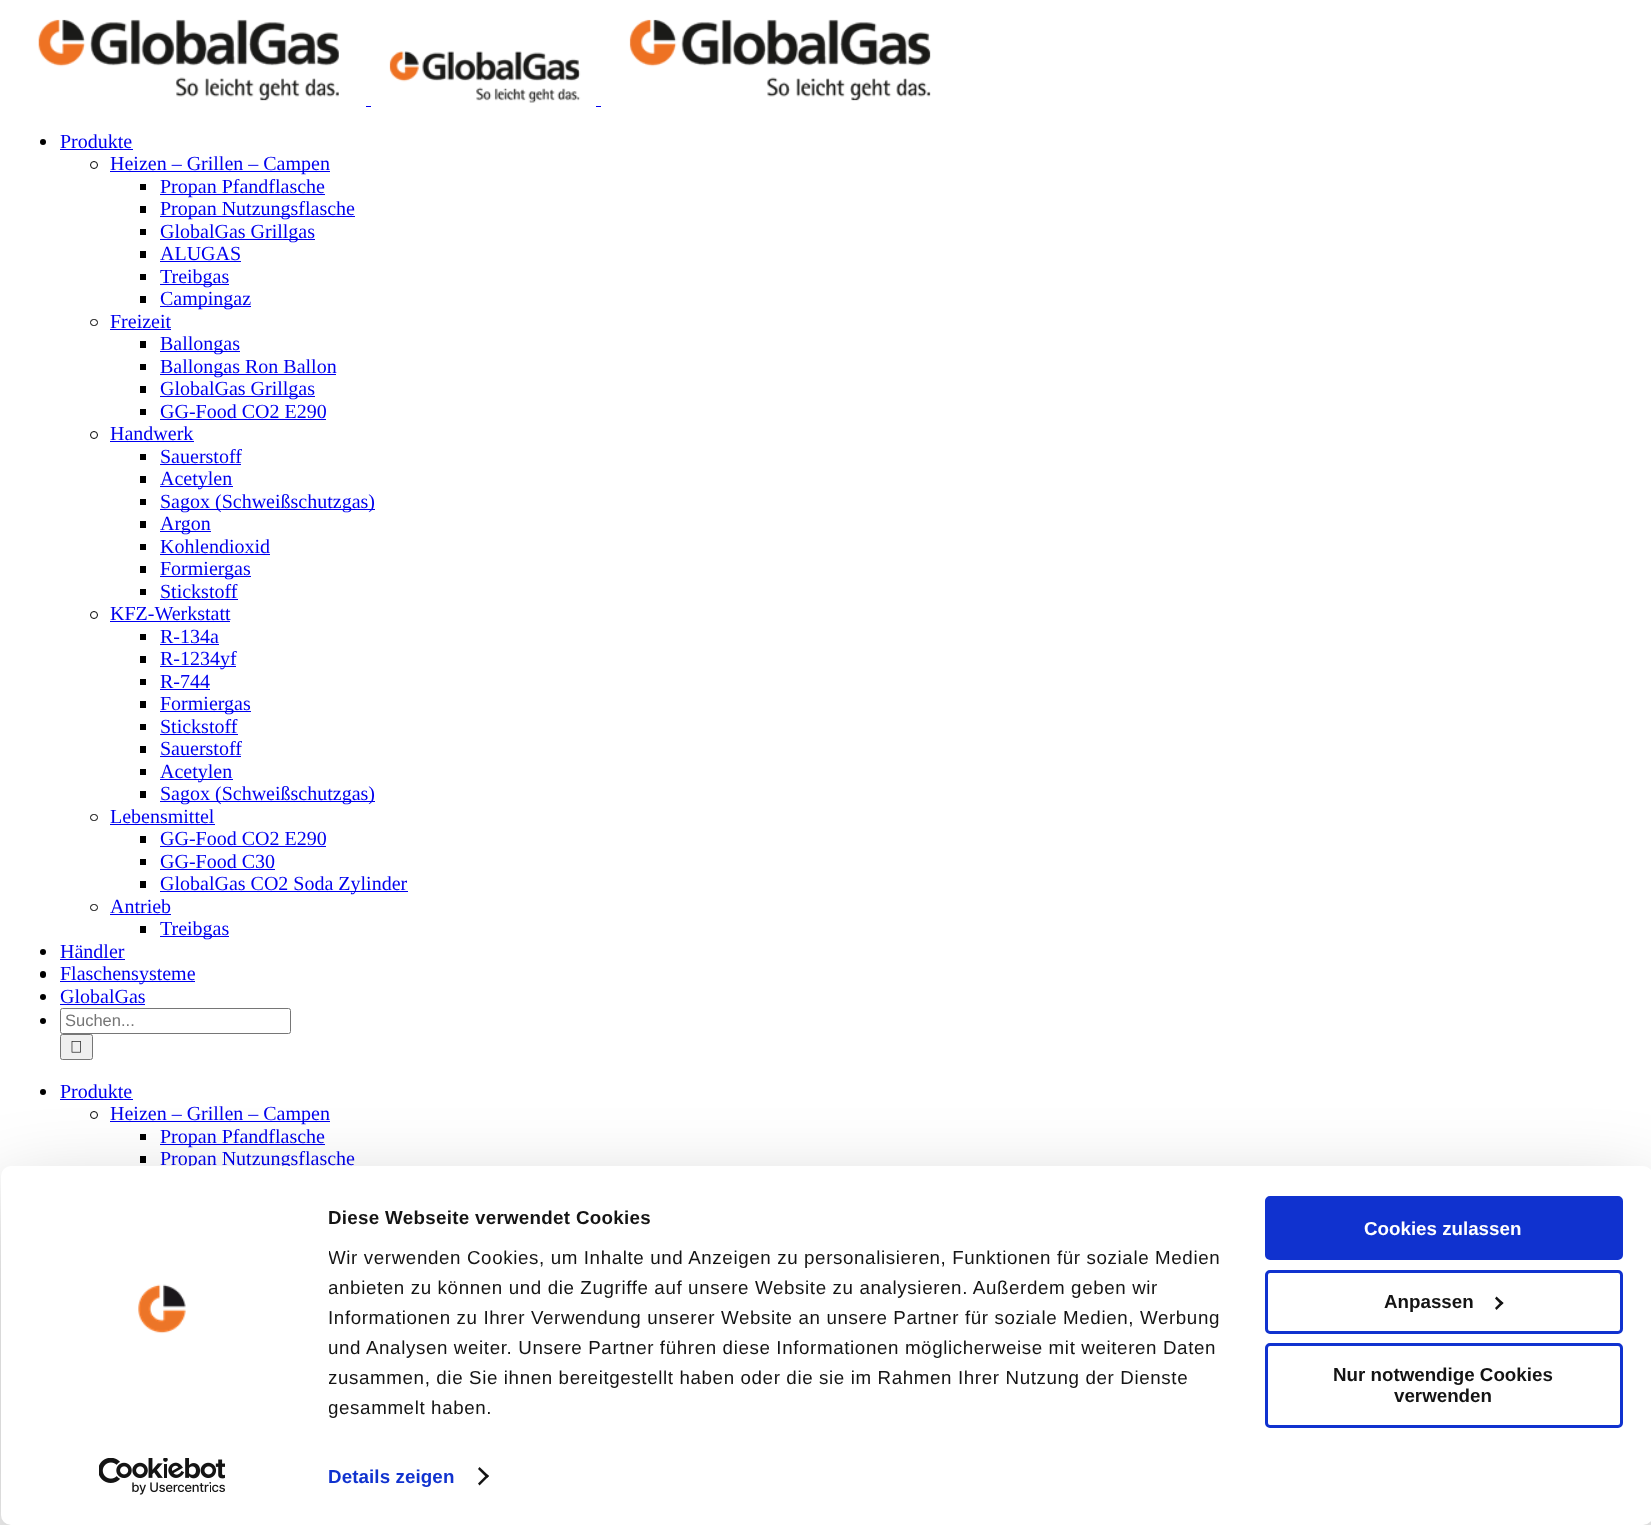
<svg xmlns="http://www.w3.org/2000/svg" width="1651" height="1525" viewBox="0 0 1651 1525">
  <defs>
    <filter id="blur1" x="-50%" y="-200%" width="200%" height="500%"><feGaussianBlur stdDeviation="44"/></filter>
    <clipPath id="clip1"><rect x="329" y="1204" width="929" height="219"/></clipPath>
  </defs>
  <rect width="100%" height="100%" fill="#ffffff"/>
  <image x="38" y="19" width="301" height="82" href="img1.png"/>
  <image x="389" y="51" width="192" height="52" href="img2.png"/>
  <image x="629" y="19" width="302" height="82" href="img3.png"/>
  <rect x="366" y="106" width="5" height="1" fill="#0000ee"/>
  <rect x="596" y="106" width="5" height="1" fill="#0000ee"/>
  <circle cx="43" cy="142" r="3" fill="#000000"/>
  <text x="60" y="148" font-family="Liberation Serif" font-size="20" fill="#0000ee">Produkte</text>
  <rect x="60" y="149" width="73" height="1" fill="#0000ee"/>
  <circle cx="94" cy="165" r="3.5" fill="none" stroke="#000000"/>
  <rect x="110" y="171" width="220" height="1" fill="#0000ee"/>
  <text x="110" y="170" font-family="Liberation Serif" font-size="20" fill="#0000ee">Heizen – Grillen – Campen</text>
  <rect x="140" y="184" width="6" height="6" fill="#000000"/>
  <rect x="160" y="194" width="165" height="1" fill="#0000ee"/>
  <text x="160" y="193" font-family="Liberation Serif" font-size="20" fill="#0000ee">Propan Pfandflasche</text>
  <rect x="140" y="206" width="6" height="7" fill="#000000"/>
  <rect x="160" y="216" width="195" height="1" fill="#0000ee"/>
  <text x="160" y="215" font-family="Liberation Serif" font-size="20" fill="#0000ee">Propan Nutzungsflasche</text>
  <rect x="140" y="229" width="6" height="6" fill="#000000"/>
  <rect x="160" y="239" width="155" height="1" fill="#0000ee"/>
  <text x="160" y="238" font-family="Liberation Serif" font-size="20" fill="#0000ee">GlobalGas Grillgas</text>
  <rect x="140" y="251" width="6" height="7" fill="#000000"/>
  <text x="160" y="260" font-family="Liberation Serif" font-size="20" fill="#0000ee">ALUGAS</text>
  <rect x="160" y="261" width="81" height="1" fill="#0000ee"/>
  <rect x="140" y="274" width="6" height="6" fill="#000000"/>
  <rect x="160" y="284" width="69" height="1" fill="#0000ee"/>
  <text x="160" y="283" font-family="Liberation Serif" font-size="20" fill="#0000ee">Treibgas</text>
  <rect x="140" y="296" width="6" height="7" fill="#000000"/>
  <rect x="160" y="306" width="91" height="1" fill="#0000ee"/>
  <text x="160" y="305" font-family="Liberation Serif" font-size="20" fill="#0000ee">Campingaz</text>
  <rect x="90.5" y="319.5" width="7" height="6" rx="3" fill="none" stroke="#000000"/>
  <text x="110" y="328" font-family="Liberation Serif" font-size="20" fill="#0000ee">Freizeit</text>
  <rect x="110" y="329" width="61" height="1" fill="#0000ee"/>
  <rect x="140" y="341" width="6" height="7" fill="#000000"/>
  <rect x="160" y="351" width="80" height="1" fill="#0000ee"/>
  <text x="160" y="350" font-family="Liberation Serif" font-size="20" fill="#0000ee">Ballongas</text>
  <rect x="140" y="364" width="6" height="6" fill="#000000"/>
  <rect x="160" y="374" width="176" height="1" fill="#0000ee"/>
  <text x="160" y="373" font-family="Liberation Serif" font-size="20" fill="#0000ee">Ballongas Ron Ballon</text>
  <rect x="140" y="386" width="6" height="7" fill="#000000"/>
  <rect x="160" y="396" width="155" height="1" fill="#0000ee"/>
  <text x="160" y="395" font-family="Liberation Serif" font-size="20" fill="#0000ee">GlobalGas Grillgas</text>
  <rect x="140" y="409" width="6" height="6" fill="#000000"/>
  <text x="160" y="418" font-family="Liberation Serif" font-size="20" fill="#0000ee">GG-Food CO2 E290</text>
  <rect x="160" y="419" width="166" height="1" fill="#0000ee"/>
  <circle cx="94" cy="435" r="3.5" fill="none" stroke="#000000"/>
  <text x="110" y="440" font-family="Liberation Serif" font-size="20" fill="#0000ee">Handwerk</text>
  <rect x="110" y="441" width="84" height="1" fill="#0000ee"/>
  <rect x="140" y="454" width="6" height="6" fill="#000000"/>
  <text x="160" y="463" font-family="Liberation Serif" font-size="20" fill="#0000ee">Sauerstoff</text>
  <rect x="160" y="464" width="81" height="1" fill="#0000ee"/>
  <rect x="140" y="476" width="6" height="7" fill="#000000"/>
  <rect x="160" y="486" width="73" height="1" fill="#0000ee"/>
  <text x="160" y="485" font-family="Liberation Serif" font-size="20" fill="#0000ee">Acetylen</text>
  <rect x="140" y="499" width="6" height="6" fill="#000000"/>
  <rect x="160" y="509" width="215" height="1" fill="#0000ee"/>
  <text x="160" y="508" font-family="Liberation Serif" font-size="20" fill="#0000ee">Sagox (Schweißschutzgas)</text>
  <rect x="140" y="521" width="6" height="7" fill="#000000"/>
  <rect x="160" y="531" width="51" height="1" fill="#0000ee"/>
  <text x="160" y="530" font-family="Liberation Serif" font-size="20" fill="#0000ee">Argon</text>
  <rect x="140" y="544" width="6" height="6" fill="#000000"/>
  <text x="160" y="553" font-family="Liberation Serif" font-size="20" fill="#0000ee">Kohlendioxid</text>
  <rect x="160" y="554" width="110" height="1" fill="#0000ee"/>
  <rect x="140" y="566" width="6" height="7" fill="#000000"/>
  <rect x="160" y="576" width="91" height="1" fill="#0000ee"/>
  <text x="160" y="575" font-family="Liberation Serif" font-size="20" fill="#0000ee">Formiergas</text>
  <rect x="140" y="589" width="6" height="6" fill="#000000"/>
  <text x="160" y="598" font-family="Liberation Serif" font-size="20" fill="#0000ee">Stickstoff</text>
  <rect x="160" y="599" width="78" height="1" fill="#0000ee"/>
  <circle cx="94" cy="615" r="3.5" fill="none" stroke="#000000"/>
  <text x="110" y="620" font-family="Liberation Serif" font-size="20" fill="#0000ee">KFZ-Werkstatt</text>
  <rect x="110" y="621" width="120" height="1" fill="#0000ee"/>
  <rect x="140" y="634" width="6" height="6" fill="#000000"/>
  <text x="160" y="643" font-family="Liberation Serif" font-size="20" fill="#0000ee">R-134a</text>
  <rect x="160" y="644" width="59" height="1" fill="#0000ee"/>
  <rect x="140" y="656" width="6" height="7" fill="#000000"/>
  <rect x="160" y="666" width="76" height="1" fill="#0000ee"/>
  <text x="160" y="665" font-family="Liberation Serif" font-size="20" fill="#0000ee">R-1234yf</text>
  <rect x="140" y="679" width="6" height="6" fill="#000000"/>
  <text x="160" y="688" font-family="Liberation Serif" font-size="20" fill="#0000ee">R-744</text>
  <rect x="160" y="689" width="50" height="1" fill="#0000ee"/>
  <rect x="140" y="701" width="6" height="7" fill="#000000"/>
  <rect x="160" y="711" width="91" height="1" fill="#0000ee"/>
  <text x="160" y="710" font-family="Liberation Serif" font-size="20" fill="#0000ee">Formiergas</text>
  <rect x="140" y="724" width="6" height="6" fill="#000000"/>
  <text x="160" y="733" font-family="Liberation Serif" font-size="20" fill="#0000ee">Stickstoff</text>
  <rect x="160" y="734" width="78" height="1" fill="#0000ee"/>
  <rect x="140" y="746" width="6" height="7" fill="#000000"/>
  <text x="160" y="755" font-family="Liberation Serif" font-size="20" fill="#0000ee">Sauerstoff</text>
  <rect x="160" y="756" width="81" height="1" fill="#0000ee"/>
  <rect x="140" y="769" width="6" height="6" fill="#000000"/>
  <rect x="160" y="779" width="73" height="1" fill="#0000ee"/>
  <text x="160" y="778" font-family="Liberation Serif" font-size="20" fill="#0000ee">Acetylen</text>
  <rect x="140" y="791" width="6" height="7" fill="#000000"/>
  <rect x="160" y="801" width="215" height="1" fill="#0000ee"/>
  <text x="160" y="800" font-family="Liberation Serif" font-size="20" fill="#0000ee">Sagox (Schweißschutzgas)</text>
  <rect x="90.5" y="814.5" width="7" height="6" rx="3" fill="none" stroke="#000000"/>
  <text x="110" y="823" font-family="Liberation Serif" font-size="20" fill="#0000ee">Lebensmittel</text>
  <rect x="110" y="824" width="105" height="1" fill="#0000ee"/>
  <rect x="140" y="836" width="6" height="7" fill="#000000"/>
  <text x="160" y="845" font-family="Liberation Serif" font-size="20" fill="#0000ee">GG-Food CO2 E290</text>
  <rect x="160" y="846" width="166" height="1" fill="#0000ee"/>
  <rect x="140" y="859" width="6" height="6" fill="#000000"/>
  <text x="160" y="868" font-family="Liberation Serif" font-size="20" fill="#0000ee">GG-Food C30</text>
  <rect x="160" y="869" width="115" height="1" fill="#0000ee"/>
  <rect x="140" y="881" width="6" height="7" fill="#000000"/>
  <rect x="160" y="891" width="248" height="1" fill="#0000ee"/>
  <text x="160" y="890" font-family="Liberation Serif" font-size="20" fill="#0000ee">GlobalGas CO2 Soda Zylinder</text>
  <rect x="90.5" y="904.5" width="7" height="6" rx="3" fill="none" stroke="#000000"/>
  <text x="110" y="913" font-family="Liberation Serif" font-size="20" fill="#0000ee">Antrieb</text>
  <rect x="110" y="914" width="61" height="1" fill="#0000ee"/>
  <rect x="140" y="926" width="6" height="7" fill="#000000"/>
  <rect x="160" y="936" width="69" height="1" fill="#0000ee"/>
  <text x="160" y="935" font-family="Liberation Serif" font-size="20" fill="#0000ee">Treibgas</text>
  <circle cx="43" cy="952" r="3" fill="#000000"/>
  <text x="60" y="958" font-family="Liberation Serif" font-size="20" fill="#0000ee">Händler</text>
  <rect x="60" y="959" width="65" height="1" fill="#0000ee"/>
  <rect x="40" y="971" width="6" height="7" rx="3" fill="#000000"/>
  <rect x="60" y="981" width="135" height="1" fill="#0000ee"/>
  <text x="60" y="980" font-family="Liberation Serif" font-size="20" fill="#0000ee">Flaschensysteme</text>
  <circle cx="43" cy="997" r="3" fill="#000000"/>
  <text x="60" y="1003" font-family="Liberation Serif" font-size="20" fill="#0000ee">GlobalGas</text>
  <rect x="60" y="1004" width="85" height="1" fill="#0000ee"/>
  <circle cx="43" cy="1021" r="3" fill="#000000"/>
  <rect x="60.5" y="1008.5" width="230" height="25" rx="2" fill="none" stroke="#767676"/>
  <text x="65" y="1026" font-family="Liberation Sans" font-size="16.5" fill="#757575">Suchen...</text>
  <rect x="60.5" y="1034.5" width="32" height="25" rx="2" fill="#efefef" stroke="#767676"/>
  <image x="71" y="1041" width="10" height="12" href="img4.png"/>
  <circle cx="43" cy="1092" r="3" fill="#000000"/>
  <text x="60" y="1098" font-family="Liberation Serif" font-size="20" fill="#0000ee">Produkte</text>
  <rect x="60" y="1099" width="73" height="1" fill="#0000ee"/>
  <circle cx="94" cy="1115" r="3.5" fill="none" stroke="#000000"/>
  <rect x="110" y="1121" width="220" height="1" fill="#0000ee"/>
  <text x="110" y="1120" font-family="Liberation Serif" font-size="20" fill="#0000ee">Heizen – Grillen – Campen</text>
  <rect x="140" y="1134" width="6" height="6" fill="#000000"/>
  <rect x="160" y="1144" width="165" height="1" fill="#0000ee"/>
  <text x="160" y="1143" font-family="Liberation Serif" font-size="20" fill="#0000ee">Propan Pfandflasche</text>
  <rect x="140" y="1156" width="6" height="7" fill="#000000"/>
  <text x="160" y="1165" font-family="Liberation Serif" font-size="20" fill="#0000ee">Propan Nutzungsflasche</text>
  <rect x="1" y="1204" width="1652" height="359" rx="10" fill="#000000" fill-opacity="0.3" filter="url(#blur1)"/>
  <rect x="1" y="1166" width="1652" height="359" rx="10" fill="#ffffff"/>
  <image x="138" y="1284" width="48" height="50" href="img5.png"/>
  <image x="99" y="1458" width="126" height="37" href="img6.png"/>
  <g clip-path="url(#clip1)">
    <text x="328" y="1224" font-family="Liberation Sans" font-size="18.75" font-weight="bold" letter-spacing="0.3" fill="#141414">Diese Webseite verwendet Cookies</text>
    <text x="328" y="1264" font-family="Liberation Sans" font-size="18.75" letter-spacing="0.62" fill="#141414">Wir verwenden Cookies, um Inhalte und Anzeigen zu personalisieren, Funktionen für soziale Medien</text>
    <text x="328" y="1294" font-family="Liberation Sans" font-size="18.75" letter-spacing="0.62" fill="#141414">anbieten zu können und die Zugriffe auf unsere Website zu analysieren. Außerdem geben wir</text>
  </g>
  <text x="328" y="1324" font-family="Liberation Sans" font-size="18.75" letter-spacing="0.62" fill="#141414">Informationen zu Ihrer Verwendung unserer Website an unsere Partner für soziale Medien, Werbung</text>
  <g clip-path="url(#clip1)">
    <text x="328" y="1354" font-family="Liberation Sans" font-size="18.75" letter-spacing="0.62" fill="#141414">und Analysen weiter. Unsere Partner führen diese Informationen möglicherweise mit weiteren Daten</text>
    <text x="328" y="1384" font-family="Liberation Sans" font-size="18.75" letter-spacing="0.62" fill="#141414">zusammen, die Sie ihnen bereitgestellt haben oder die sie im Rahmen Ihrer Nutzung der Dienste</text>
    <text x="328" y="1414" font-family="Liberation Sans" font-size="18.75" letter-spacing="0.62" fill="#141414">gesammelt haben.</text>
  </g>
  <text x="328" y="1483" font-family="Liberation Sans" font-size="18.75" font-weight="bold" letter-spacing="0.1" fill="#1032cf">Details zeigen</text>
  <path d="M479.5 1467L489 1476L487 1478L478 1469Z" fill="#141414"/>
  <path d="M487 1474.5L489 1476L479.5 1485.5L478 1483.5Z" fill="#141414"/>
  <rect x="1266.5" y="1197.5" width="355" height="61" rx="3.5" fill="#1032cf" stroke="#1032cf" stroke-width="3"/>
  <text x="1364" y="1235" font-family="Liberation Sans" font-size="18.75" font-weight="bold" fill="#ffffff">Cookies zulassen</text>
  <rect x="1266.5" y="1271.5" width="355" height="61" rx="3.5" fill="none" stroke="#1032cf" stroke-width="3"/>
  <text x="1384" y="1308" font-family="Liberation Sans" font-size="18.75" font-weight="bold" fill="#141414">Anpassen</text>
  <path d="M1496.5 1296.5L1503.5 1303L1501.5 1305L1495 1298.5Z" fill="#141414"/>
  <path d="M1501.5 1301.5L1503.5 1303L1496.5 1310L1495 1308Z" fill="#141414"/>
  <rect x="1266.5" y="1344.5" width="355" height="82" rx="3.5" fill="none" stroke="#1032cf" stroke-width="3"/>
  <text x="1333" y="1381" font-family="Liberation Sans" font-size="18.75" font-weight="bold" fill="#141414">Nur notwendige Cookies</text>
  <text x="1394" y="1402" font-family="Liberation Sans" font-size="18.75" font-weight="bold" fill="#141414">verwenden</text>
</svg>
